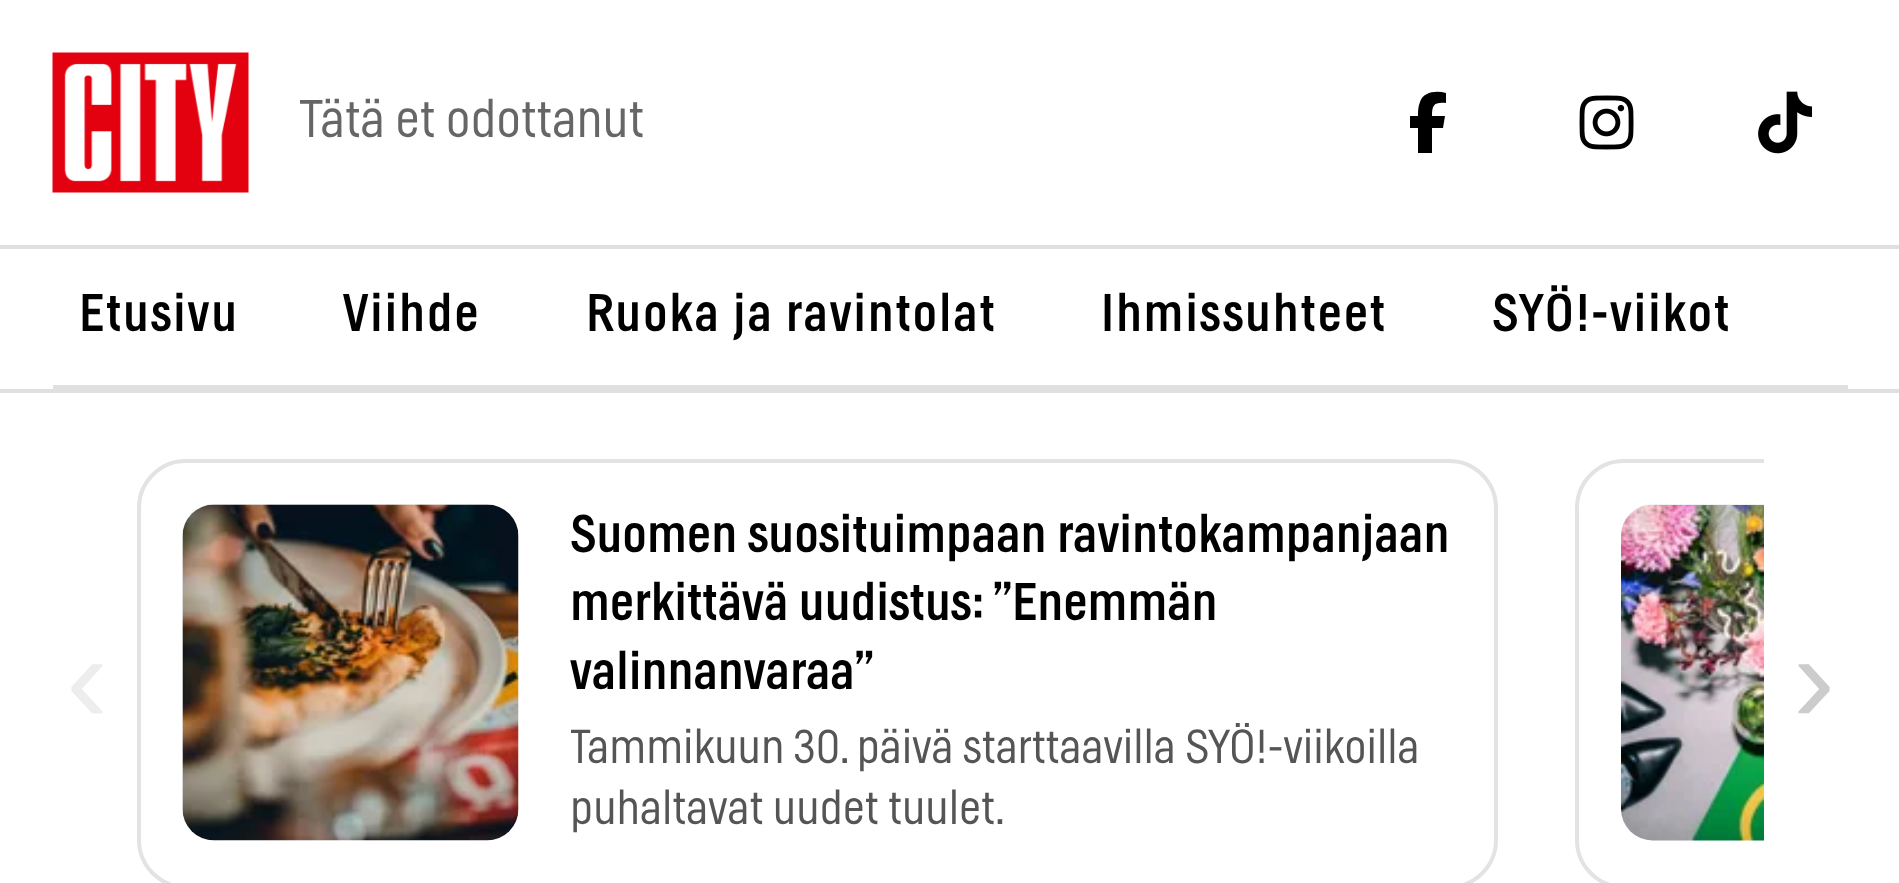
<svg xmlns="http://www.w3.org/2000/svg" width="1899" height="883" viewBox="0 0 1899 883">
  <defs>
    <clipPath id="clip1"><rect x="571" y="721" width="882" height="123"/></clipPath>
    <clipPath id="clip2"><rect x="137" y="445" width="1627" height="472"/></clipPath>
  </defs>
  <rect width="100%" height="100%" fill="#ffffff"/>
  <rect x="0" y="389" width="1899" height="4" fill="#e0e0e0"/>
  <rect x="0" y="245" width="1899" height="4" fill="#e0e0e0"/>
  <image x="52" y="52" width="197" height="141" href="img1.png"/>
  <text x="300" y="137" font-family="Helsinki" font-size="52.5" font-weight="200" fill="#666666">Tätä et odottanut</text>
  <path d="M1418 128V153H1432V128H1443L1445 116H1432C1432 105 1434 102 1446 103V93C1436 90 1423 92 1420 102C1418 107 1418 111 1418 116H1410V128Z" fill="#000000"/>
  <image x="1579" y="95" width="55" height="55" href="img2.png"/>
  <image x="1758" y="91" width="55" height="63" href="img3.png"/>
  <rect x="53" y="385" width="1795" height="4" fill="#e0e0e0"/>
  <text x="79" y="331" font-family="Helsinki" font-size="52.5" letter-spacing="1.75" fill="#000000">Etusivu</text>
  <text x="343" y="331" font-family="Helsinki" font-size="52.5" letter-spacing="1.75" fill="#000000">Viihde</text>
  <text x="586" y="331" font-family="Helsinki" font-size="52.5" letter-spacing="1.75" fill="#000000">Ruoka ja ravintolat</text>
  <text x="1101" y="331" font-family="Helsinki" font-size="52.5" letter-spacing="1.75" fill="#000000">Ihmissuhteet</text>
  <text x="1492" y="331" font-family="Helsinki" font-size="52.5" letter-spacing="1.75" fill="#000000">SYÖ!-viikot</text>
  <text x="66" y="722" font-family="Liberation Sans" font-size="126" fill="#ededed">‹</text>
  <rect x="139" y="461" width="1357" height="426" rx="47" fill="none" stroke="#e3e3e3" stroke-width="4"/>
  <rect x="182" y="504" width="336" height="336" rx="32" fill="#f2f2f2"/>
  <image x="182" y="504" width="337" height="337" href="img4.png"/>
  <text x="570" y="552" font-family="Helsinki" font-size="52.5" fill="#000000">Suomen suosituimpaan ravintokampanjaan</text>
  <text x="570" y="620" font-family="Helsinki" font-size="52.5" fill="#000000">merkittävä uudistus: ”Enemmän</text>
  <text x="570" y="689" font-family="Helsinki" font-size="52.5" fill="#000000">valinnanvaraa”</text>
  <g clip-path="url(#clip1)">
    <text x="570" y="763" font-family="Helsinki" font-size="47.25" font-weight="200" fill="#555555">Tammikuun 30. päivä starttaavilla SYÖ!-viikoilla</text>
  </g>
  <text x="570" y="824" font-family="Helsinki" font-size="47.25" font-weight="200" fill="#555555">puhaltavat uudet tuulet.</text>
  <g clip-path="url(#clip2)">
    <rect x="1577" y="461" width="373" height="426" rx="47" fill="none" stroke="#e3e3e3" stroke-width="4"/>
  </g>
  <path d="M1653 504H1764V840H1653C1635.5 840 1621 825.5 1621 808V536C1621 518.5 1635.5 504 1653 504Z" fill="#f2f2f2"/>
  <image x="1621" y="505" width="143" height="336" href="img5.png"/>
  <text x="1793" y="722" font-family="Liberation Sans" font-size="126" fill="#cccccc">›</text>
</svg>
